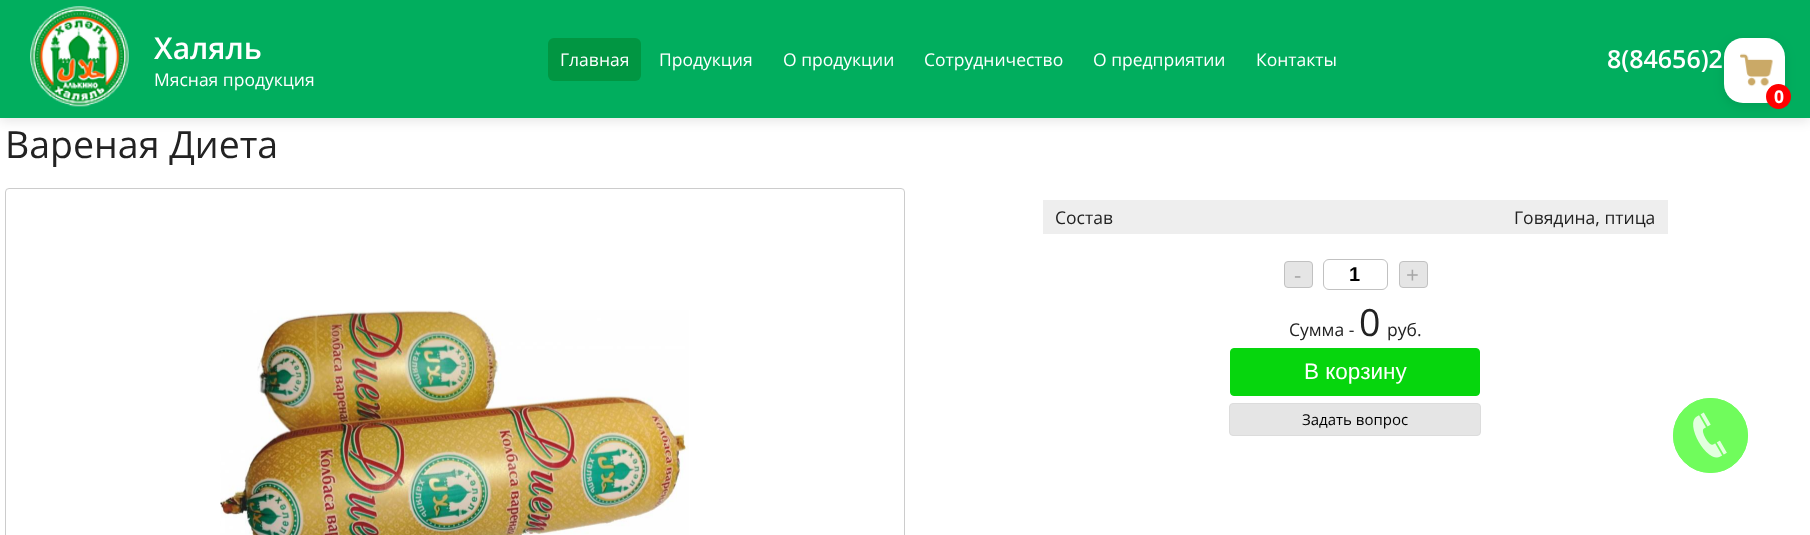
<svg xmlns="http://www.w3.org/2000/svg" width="1810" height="535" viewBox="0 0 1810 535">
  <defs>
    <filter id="blur1" x="-50%" y="-200%" width="200%" height="500%"><feGaussianBlur stdDeviation="6"/></filter>
  </defs>
  <rect width="100%" height="100%" fill="#ffffff"/>
  <rect x="0" y="4" width="1810" height="117" fill="#000000" fill-opacity="0.1" filter="url(#blur1)"/>
  <rect x="0" y="0" width="1810" height="118" fill="#01ae5e"/>
  <image x="30" y="6" width="99" height="101" href="img1.png"/>
  <text x="154" y="59" font-family="Open Sans" font-size="30" font-weight="600" fill="#ffffff">Халяль</text>
  <text x="154" y="86" font-family="Open Sans" font-size="17.5" fill="#ffffff">Мясная продукция</text>
  <rect x="548" y="38" width="93" height="43" rx="6" fill="#019642"/>
  <text x="560" y="66" font-family="Open Sans" font-size="17.5" fill="#ffffff">Главная</text>
  <text x="659" y="66" font-family="Open Sans" font-size="17.5" fill="#ffffff">Продукция</text>
  <text x="783" y="66" font-family="Open Sans" font-size="17.5" fill="#ffffff">О продукции</text>
  <text x="924" y="66" font-family="Open Sans" font-size="17.5" fill="#ffffff">Сотрудничество</text>
  <text x="1093" y="66" font-family="Open Sans" font-size="17.5" fill="#ffffff">О предприятии</text>
  <text x="1256" y="66" font-family="Open Sans" font-size="17.5" fill="#ffffff">Контакты</text>
  <text x="1607" y="68" font-family="Open Sans" font-size="25" font-weight="600" fill="#ffffff">8(84656)2</text>
  <rect x="1724" y="41" width="61" height="65" rx="19" fill="#000000" fill-opacity="0.1" filter="url(#blur1)"/>
  <rect x="1724" y="38" width="61" height="65" rx="19" fill="#ffffff"/>
  <image x="1740" y="53" width="33" height="34" href="img2.png"/>
  <circle cx="1778.5" cy="96.5" r="12.5" fill="#ff0000"/>
  <text x="1774" y="103" font-family="Open Sans" font-size="17.5" font-weight="bold" fill="#ffffff">0</text>
  <text x="5" y="158" font-family="Open Sans" font-size="37.5" fill="#222222">Вареная Диета</text>
  <rect x="5.5" y="188.5" width="899" height="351" rx="3.5" fill="none" stroke="#cccccc"/>
  <image x="220" y="310" width="469" height="225" href="img3.png"/>
  <rect x="1043" y="200" width="625" height="34" fill="#eeeeee"/>
  <text x="1055" y="224" font-family="Open Sans" font-size="17.5" fill="#222222">Состав</text>
  <text x="1514" y="224" font-family="Open Sans" font-size="17.5" fill="#222222">Говядина, птица</text>
  <rect x="1284.5" y="261.5" width="28" height="26" rx="3.5" fill="#e5e5e5" stroke="#c1c1c1"/>
  <text x="1294" y="283" font-family="Open Sans" font-size="22.5" fill="#a7a7a7">-</text>
  <rect x="1323.5" y="259.5" width="64" height="30" rx="5.5" fill="none" stroke="#c1c1c1"/>
  <text x="1349" y="281" font-family="Liberation Sans" font-size="20" font-weight="bold" fill="#000000">1</text>
  <rect x="1399.5" y="261.5" width="28" height="26" rx="3.5" fill="#e5e5e5" stroke="#c1c1c1"/>
  <text x="1406" y="283" font-family="Open Sans" font-size="22.5" fill="#a7a7a7">+</text>
  <text x="1289" y="336" font-family="Open Sans" font-size="17.5" fill="#222222">Сумма -</text>
  <text x="1359" y="336" font-family="Open Sans" font-size="37.5" fill="#222222">0</text>
  <text x="1387" y="336" font-family="Open Sans" font-size="17.5" fill="#222222">руб.</text>
  <rect x="1230.5" y="348.5" width="249" height="47" rx="3.5" fill="#06d60d" stroke="#06d60d"/>
  <text x="1304" y="379" font-family="Liberation Sans" font-size="22.5" fill="#ffffff">В корзину</text>
  <rect x="1229.5" y="403.5" width="251" height="32" rx="3.5" fill="#e5e5e5" stroke="#dcdcdc"/>
  <text x="1302" y="425" font-family="Open Sans" font-size="15" fill="#000000">Задать вопрос</text>
  <circle cx="1710.5" cy="435.5" r="37" fill="none" stroke="#70fc5c"/>
  <circle cx="1710.5" cy="435.5" r="37.5" fill="#70fc5c"/>
  <image x="1693" y="412" width="34" height="46" href="img4.png"/>
</svg>
